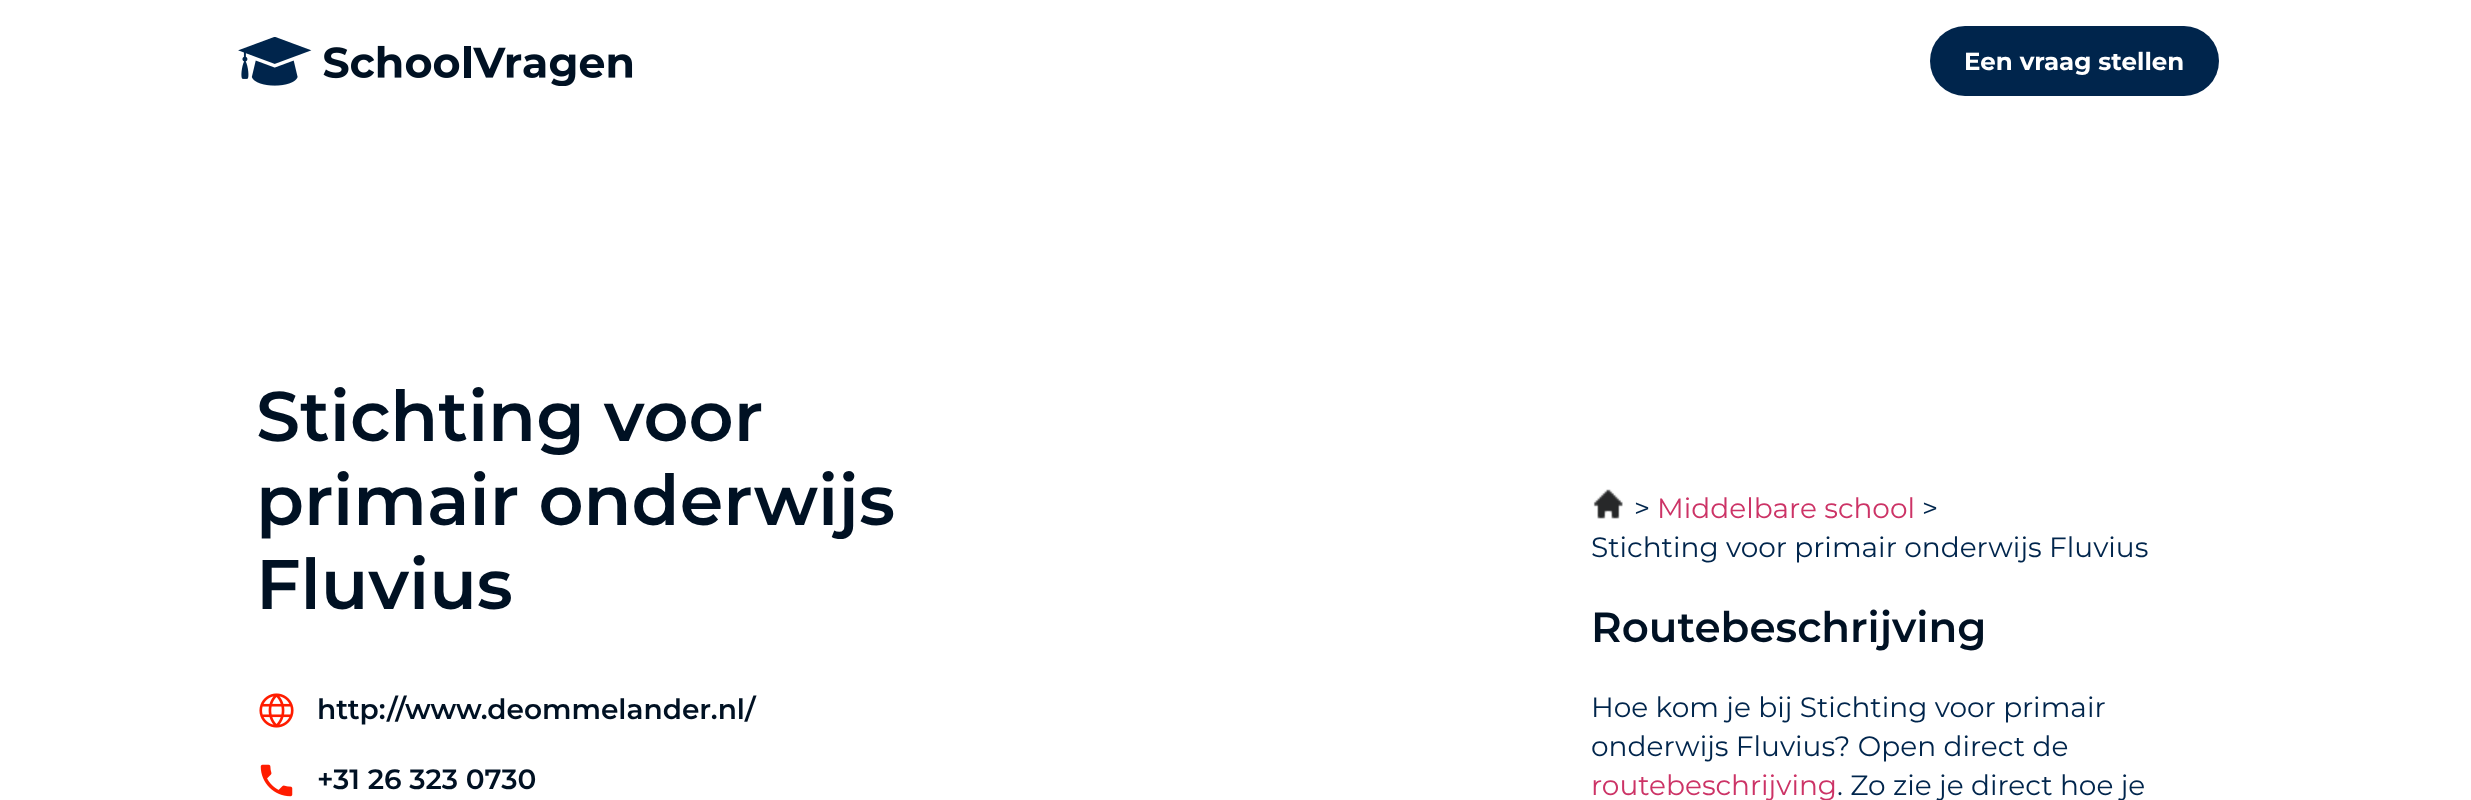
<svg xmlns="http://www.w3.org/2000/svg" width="2471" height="800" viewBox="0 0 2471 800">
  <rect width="100%" height="100%" fill="#ffffff"/>
  <image x="238" y="37" width="395" height="49" href="img1.png"/>
  <rect x="1930" y="26" width="289" height="70" rx="35" fill="#00254c"/>
  <text x="1964" y="70" font-family="Montserrat" font-size="24.5" font-weight="bold" fill="#ffffff">Een vraag stellen</text>
  <text x="256" y="441" font-family="Montserrat" font-size="70" font-weight="600" fill="#001123">Stichting voor</text>
  <text x="256" y="525" font-family="Montserrat" font-size="70" font-weight="600" fill="#001123">primair onderwijs</text>
  <text x="256" y="609" font-family="Montserrat" font-size="70" font-weight="600" fill="#001123">Fluvius</text>
  <image x="259" y="693" width="35" height="35" href="img2.png"/>
  <text x="317" y="719" font-family="Montserrat" font-size="28" font-weight="600" fill="#001123">http://www.deommelander.nl/</text>
  <image x="260" y="764" width="33" height="33" href="img3.png"/>
  <text x="317" y="789" font-family="Montserrat" font-size="28" font-weight="600" fill="#001123">+31 26 323 0730</text>
  <image x="1593" y="489" width="30" height="30" href="img4.png"/>
  <text x="1634" y="518" font-family="Montserrat" font-size="28" fill="#00254c">&gt;</text>
  <text x="1657" y="518" font-family="Montserrat" font-size="28" fill="#cc3366">Middelbare school</text>
  <text x="1922" y="518" font-family="Montserrat" font-size="28" fill="#00254c">&gt;</text>
  <text x="1591" y="557" font-family="Montserrat" font-size="28" fill="#00254c">Stichting voor primair onderwijs Fluvius</text>
  <text x="1591" y="642" font-family="Montserrat" font-size="42" font-weight="600" fill="#001123">Routebeschrijving</text>
  <text x="1591" y="717" font-family="Montserrat" font-size="28" fill="#00254c">Hoe kom je bij Stichting voor primair</text>
  <text x="1591" y="756" font-family="Montserrat" font-size="28" fill="#00254c">onderwijs Fluvius? Open direct de</text>
  <text x="1591" y="795" font-family="Montserrat" font-size="28" fill="#cc3366">routebeschrijving</text>
  <text x="1837" y="795" font-family="Montserrat" font-size="28" fill="#00254c">. Zo zie je direct hoe je</text>
</svg>
